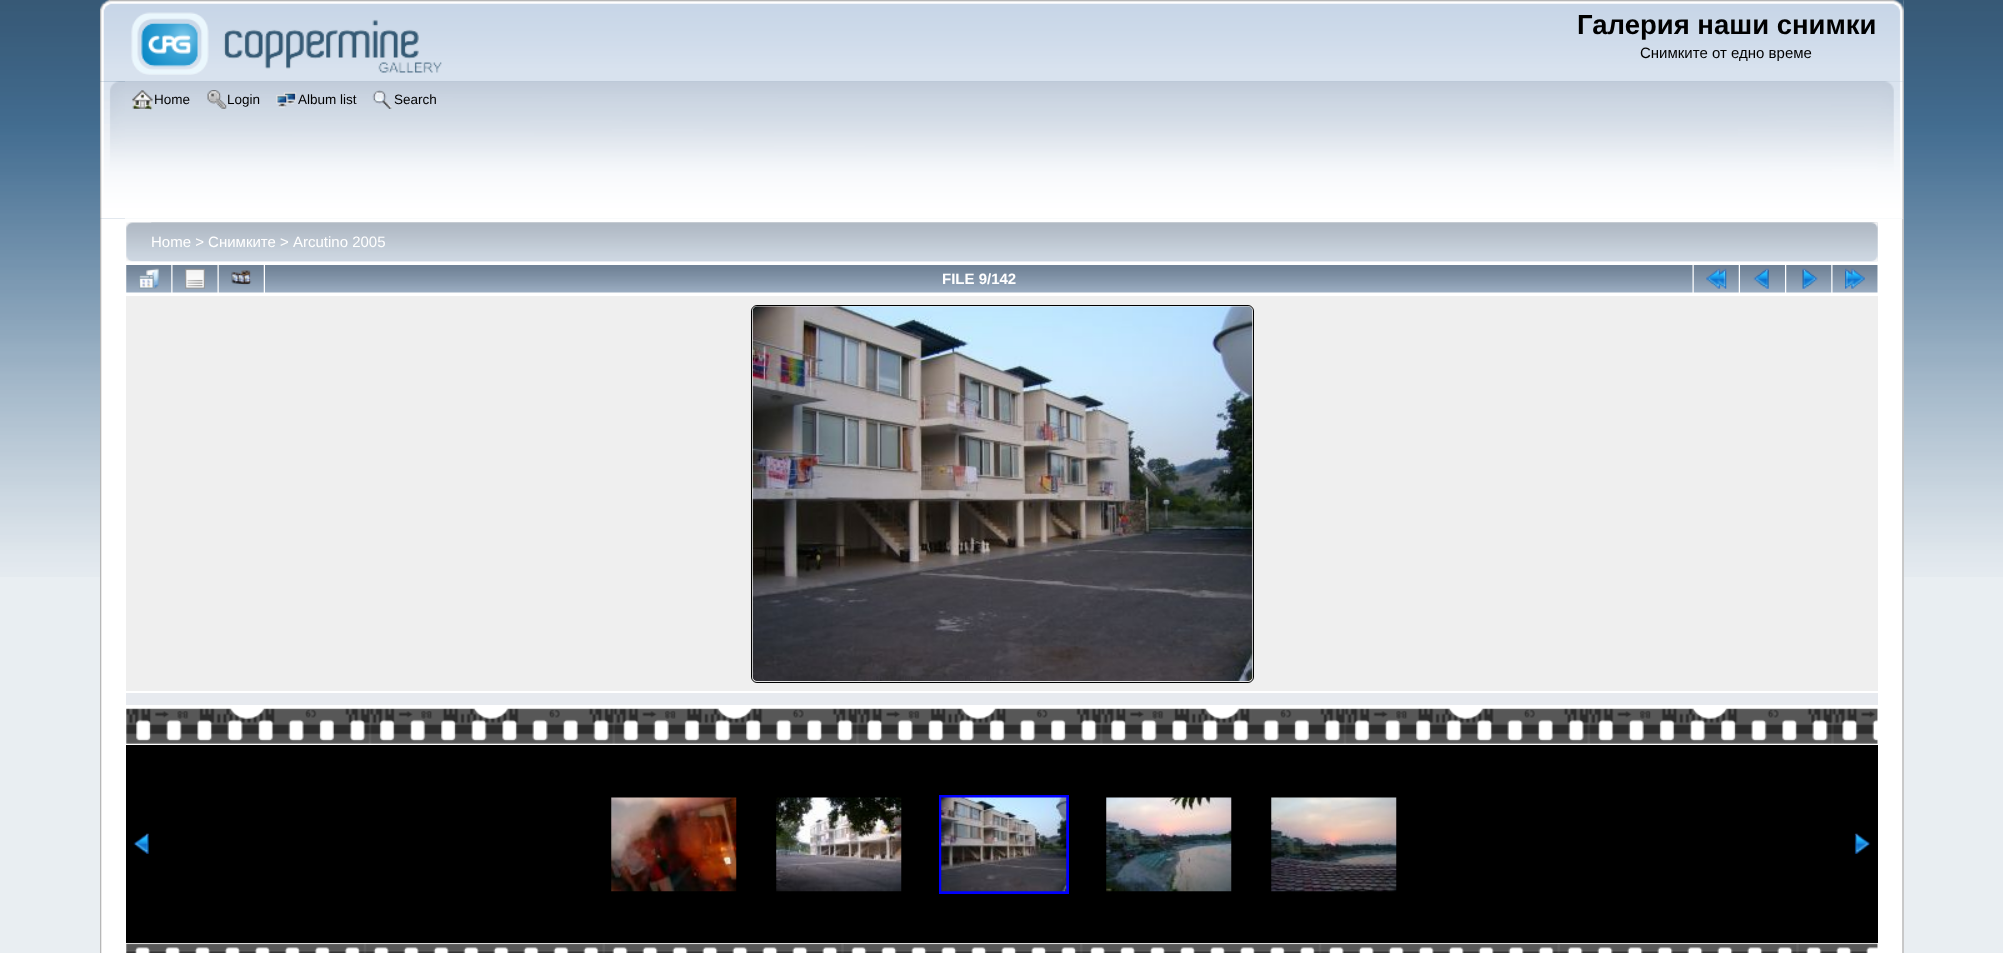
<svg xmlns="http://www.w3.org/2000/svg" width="2003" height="953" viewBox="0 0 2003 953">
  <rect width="100%" height="100%" fill="#e9eef2"/>
  <image x="0" y="0" width="2003" height="577" href="img1.png"/>
  <image x="100" y="0" width="1804" height="82" href="img2.png"/>
  <image x="125" y="0" width="1779" height="82" href="img3.png"/>
  <image x="131" y="12" width="311" height="63" href="img4.png"/>
  <text x="1577" y="34" font-family="Liberation Sans" font-size="27.5" font-weight="bold" fill="#000000">Галерия наши снимки</text>
  <text x="1640" y="58" font-family="Liberation Sans" font-size="15" fill="#000000">Снимките от едно време</text>
  <image x="100" y="81" width="1804" height="138" href="img5.png"/>
  <image x="125" y="81" width="1779" height="138" href="img6.png"/>
  <image x="132" y="90" width="21" height="20" href="img7.png"/>
  <text x="154" y="104" font-family="Liberation Sans" font-size="13.5" fill="#000000">Home</text>
  <image x="207" y="90" width="20" height="19" href="img8.png"/>
  <text x="227" y="104" font-family="Liberation Sans" font-size="13.5" fill="#000000">Login</text>
  <image x="276" y="92" width="21" height="16" href="img9.png"/>
  <text x="298" y="104" font-family="Liberation Sans" font-size="13.5" fill="#000000">Album list</text>
  <image x="372" y="90" width="20" height="19" href="img10.png"/>
  <text x="394" y="104" font-family="Liberation Sans" font-size="13.5" fill="#000000">Search</text>
  <image x="100" y="218" width="1804" height="735" href="img11.png"/>
  <image x="1902" y="218" width="2" height="735" href="img12.png"/>
  <image x="126" y="222" width="1752" height="40" href="img13.png"/>
  <image x="151" y="222" width="1727" height="40" href="img14.png"/>
  <text x="151" y="247" font-family="Liberation Sans" font-size="15" fill="#ffffff">Home &gt; Снимките &gt; Arcutino 2005</text>
  <image x="126" y="265" width="46" height="28" href="img15.png"/>
  <image x="139" y="268" width="20" height="21" href="img16.png"/>
  <image x="172" y="265" width="46" height="28" href="img17.png"/>
  <image x="185" y="268" width="20" height="21" href="img18.png"/>
  <image x="218" y="265" width="46" height="28" href="img19.png"/>
  <image x="231" y="270" width="21" height="15" href="img20.png"/>
  <image x="265" y="265" width="1428" height="28" href="img21.png"/>
  <text x="942" y="284" font-family="Liberation Sans" font-size="15" font-weight="bold" fill="#ffffff">FILE 9/142</text>
  <image x="1693" y="265" width="46" height="28" href="img19.png"/>
  <image x="1706" y="268" width="21" height="21" href="img22.png"/>
  <image x="1740" y="265" width="45" height="28" href="img23.png"/>
  <image x="1753" y="268" width="16" height="21" href="img24.png"/>
  <image x="1786" y="265" width="46" height="28" href="img15.png"/>
  <image x="1802" y="268" width="16" height="21" href="img25.png"/>
  <image x="1832" y="265" width="46" height="28" href="img17.png"/>
  <image x="1845" y="268" width="20" height="21" href="img26.png"/>
  <rect x="126" y="296" width="1752" height="395" fill="#efefef"/>
  <rect x="751.5" y="305.5" width="502" height="377" rx="5.5" fill="none" stroke="#000000"/>
  <image x="752" y="306" width="501" height="376" href="img27.png"/>
  <rect x="126" y="693" width="1752" height="12" fill="#e7eaef"/>
  <image x="126" y="708" width="1752" height="36" href="img28.png"/>
  <rect x="126" y="745" width="1752" height="198" fill="#000000"/>
  <image x="133" y="833" width="16" height="21" href="img29.png"/>
  <image x="611" y="797" width="126" height="95" href="img30.png"/>
  <image x="776" y="797" width="126" height="95" href="img31.png"/>
  <rect x="940.5" y="796.5" width="127" height="96" fill="none" stroke="#0000ff" stroke-width="3"/>
  <image x="941" y="797" width="126" height="95" href="img32.png"/>
  <image x="1106" y="797" width="126" height="95" href="img33.png"/>
  <image x="1271" y="797" width="126" height="95" href="img34.png"/>
  <image x="1854" y="833" width="17" height="21" href="img35.png"/>
  <image x="126" y="943" width="1752" height="10" href="img36.png"/>
</svg>
